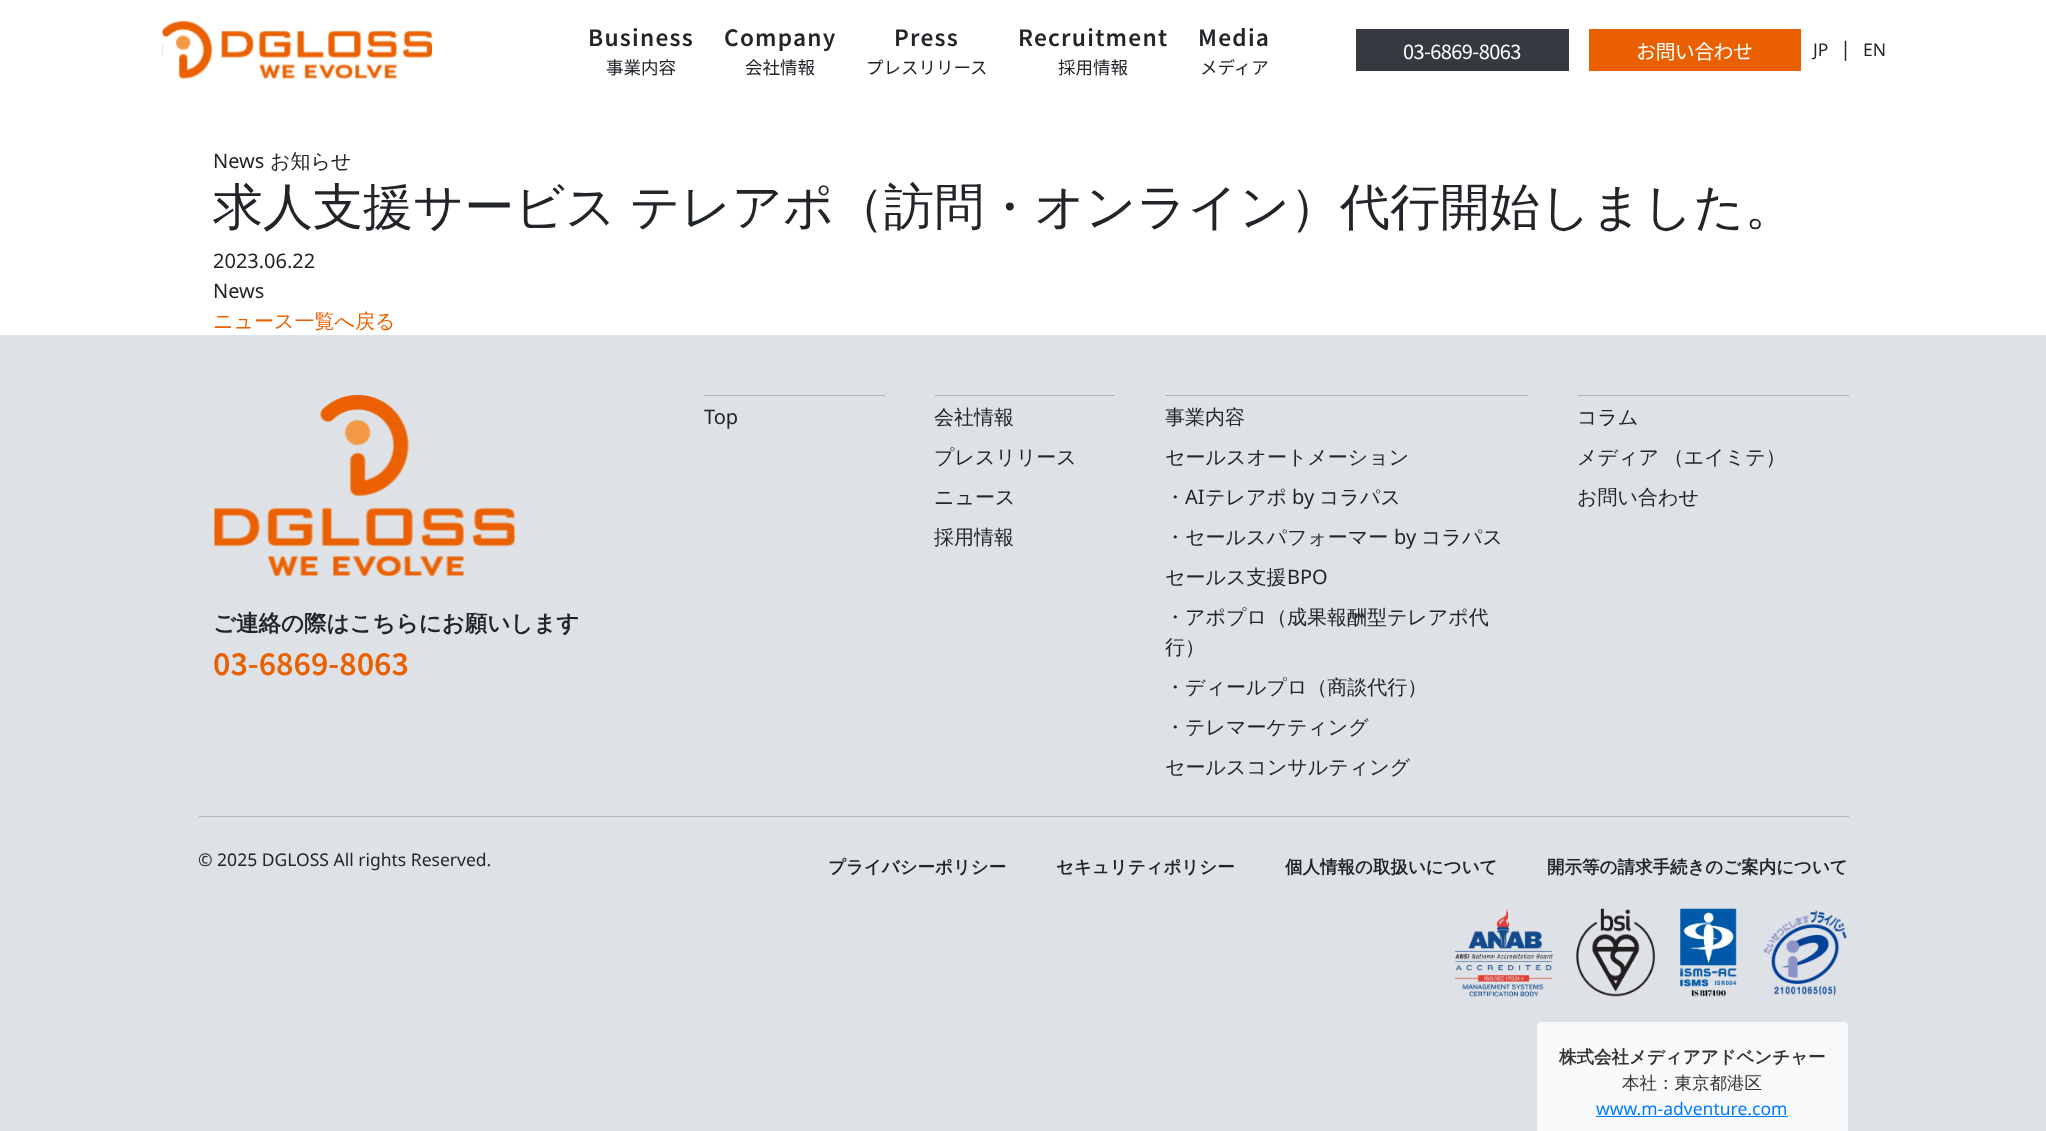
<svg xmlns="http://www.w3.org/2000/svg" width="2046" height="1131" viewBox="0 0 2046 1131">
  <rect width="100%" height="100%" fill="#ffffff"/>
  <image x="162" y="21" width="271" height="58" href="img1.png"/>
  <text x="588" y="46" font-family="Noto Sans JP" font-size="22.5" font-weight="600" letter-spacing="1.25" fill="#212529">Business</text>
  <text x="606" y="74" font-family="Noto Sans JP" font-size="17.5" fill="#212529">事業内容</text>
  <text x="724" y="46" font-family="Noto Sans JP" font-size="22.5" font-weight="600" letter-spacing="1.25" fill="#212529">Company</text>
  <text x="745" y="74" font-family="Noto Sans JP" font-size="17.5" fill="#212529">会社情報</text>
  <text x="894" y="46" font-family="Noto Sans JP" font-size="22.5" font-weight="600" letter-spacing="1.25" fill="#212529">Press</text>
  <text x="866" y="74" font-family="Noto Sans JP" font-size="17.5" fill="#212529">プレスリリース</text>
  <text x="1018" y="46" font-family="Noto Sans JP" font-size="22.5" font-weight="600" letter-spacing="1.25" fill="#212529">Recruitment</text>
  <text x="1058" y="74" font-family="Noto Sans JP" font-size="17.5" fill="#212529">採用情報</text>
  <text x="1198" y="46" font-family="Noto Sans JP" font-size="22.5" font-weight="600" letter-spacing="1.25" fill="#212529">Media</text>
  <text x="1200" y="74" font-family="Noto Sans JP" font-size="17.5" fill="#212529">メディア</text>
  <rect x="1356" y="29" width="213" height="42" fill="#343a40"/>
  <text x="1403" y="59" font-family="Noto Sans JP" font-size="20" letter-spacing="-0.6" fill="#ffffff">03-6869-8063</text>
  <rect x="1589" y="29" width="212" height="42" fill="#ea6000"/>
  <text x="1636" y="59" font-family="Noto Sans JP" font-size="20" letter-spacing="-0.6" fill="#ffffff">お問い合わせ</text>
  <text x="1813" y="56" font-family="Noto Sans" font-size="17.5" fill="#212529">JP</text>
  <text x="1840" y="56" font-family="Noto Sans" font-size="20" fill="#212529">|</text>
  <text x="1863" y="56" font-family="Noto Sans" font-size="17.5" fill="#212529">EN</text>
  <text x="213" y="168" font-family="Noto Sans" font-size="20" fill="#212529">News</text>
  <text x="270" y="168" font-family="WenQuanYi Zen Hei" font-size="20" font-weight="500" fill="#212529">お知らせ</text>
  <text x="213" y="224" word-spacing="-2" font-family="WenQuanYi Zen Hei" font-size="50" font-weight="500" fill="#212529">求人支援サービス テレアポ（訪問・オンライン）代行開始しました。</text>
  <text x="213" y="268" font-family="Noto Sans" font-size="20" fill="#212529">2023.06.22</text>
  <text x="213" y="298" font-family="Noto Sans" font-size="20" fill="#212529">News</text>
  <text x="213" y="328" font-family="WenQuanYi Zen Hei" font-size="20" font-weight="500" fill="#ea6000">ニュース一覧へ戻る</text>
  <rect x="0" y="335" width="2046" height="796" fill="#dee2e6"/>
  <image x="213" y="395" width="302" height="181" href="img2.png"/>
  <text x="213" y="631" font-family="WenQuanYi Zen Hei" font-size="22.5" font-weight="bold" fill="#212529">ご連絡の際はこちらにお願いします</text>
  <text x="213" y="675" font-family="Noto Sans JP" font-size="30" font-weight="600" fill="#ea6000">03-6869-8063</text>
  <rect x="704" y="395" width="181" height="1" fill="#adb5bd"/>
  <text x="704" y="424" font-family="Noto Sans" font-size="20" fill="#212529">Top</text>
  <rect x="935" y="395" width="180" height="1" fill="#adb5bd"/>
  <text x="934" y="424" font-family="WenQuanYi Zen Hei" font-size="20" font-weight="500" fill="#212529">会社情報</text>
  <text x="934" y="464" font-family="WenQuanYi Zen Hei" font-size="20" font-weight="500" fill="#212529">プレスリリース</text>
  <text x="934" y="504" font-family="WenQuanYi Zen Hei" font-size="20" font-weight="500" fill="#212529">ニュース</text>
  <text x="934" y="544" font-family="WenQuanYi Zen Hei" font-size="20" font-weight="500" fill="#212529">採用情報</text>
  <rect x="1165" y="395" width="363" height="1" fill="#adb5bd"/>
  <text x="1165" y="424" font-family="WenQuanYi Zen Hei" font-size="20" font-weight="500" fill="#212529">事業内容</text>
  <text x="1165" y="464" font-family="WenQuanYi Zen Hei" font-size="20" font-weight="500" fill="#212529">セールスオートメーション</text>
  <text x="1165" y="504" font-family="WenQuanYi Zen Hei" font-size="20" font-weight="500" fill="#212529">・</text>
  <text x="1185" y="504" font-family="Noto Sans" font-size="20" fill="#212529">AI</text>
  <text x="1205" y="504" font-family="WenQuanYi Zen Hei" font-size="20" font-weight="500" fill="#212529">テレアポ</text>
  <text x="1292" y="504" font-family="Noto Sans" font-size="20" fill="#212529">by</text>
  <text x="1319" y="504" font-family="WenQuanYi Zen Hei" font-size="20" font-weight="500" fill="#212529">コラパス</text>
  <text x="1165" y="544" font-family="WenQuanYi Zen Hei" font-size="20" font-weight="500" fill="#212529">・セールスパフォーマー</text>
  <text x="1394" y="544" font-family="Noto Sans" font-size="20" fill="#212529">by</text>
  <text x="1421" y="544" font-family="WenQuanYi Zen Hei" font-size="20" font-weight="500" fill="#212529">コラパス</text>
  <text x="1165" y="584" font-family="WenQuanYi Zen Hei" font-size="20" font-weight="500" fill="#212529">セールス支援</text>
  <text x="1287" y="584" font-family="Noto Sans" font-size="20" fill="#212529">BPO</text>
  <text x="1165" y="624" font-family="WenQuanYi Zen Hei" font-size="20" font-weight="500" fill="#212529">・アポプロ（成果報酬型テレアポ代</text>
  <text x="1165" y="654" font-family="WenQuanYi Zen Hei" font-size="20" font-weight="500" fill="#212529">行）</text>
  <text x="1165" y="694" font-family="WenQuanYi Zen Hei" font-size="20" font-weight="500" fill="#212529">・ディールプロ（商談代行）</text>
  <text x="1165" y="734" font-family="WenQuanYi Zen Hei" font-size="20" font-weight="500" fill="#212529">・テレマーケティング</text>
  <text x="1165" y="774" font-family="WenQuanYi Zen Hei" font-size="20" font-weight="500" fill="#212529">セールスコンサルティング</text>
  <rect x="1578" y="395" width="271" height="1" fill="#adb5bd"/>
  <text x="1577" y="424" font-family="WenQuanYi Zen Hei" font-size="20" font-weight="500" fill="#212529">コラム</text>
  <text x="1577" y="464" word-spacing="-1" font-family="WenQuanYi Zen Hei" font-size="20" font-weight="500" fill="#212529">メディア （エイミテ）</text>
  <text x="1577" y="504" font-family="WenQuanYi Zen Hei" font-size="20" font-weight="500" fill="#212529">お問い合わせ</text>
  <rect x="199" y="816" width="1650" height="1" fill="#adb5bd"/>
  <text x="198" y="866" font-family="Noto Sans" font-size="17.5" fill="#212529">© 2025 DGLOSS All rights Reserved.</text>
  <text x="828" y="873" font-family="WenQuanYi Zen Hei" font-size="17.5" font-weight="bold" fill="#212529">プライバシーポリシー</text>
  <text x="1056" y="873" font-family="WenQuanYi Zen Hei" font-size="17.5" font-weight="bold" fill="#212529">セキュリティポリシー</text>
  <text x="1285" y="873" font-family="WenQuanYi Zen Hei" font-size="17.5" font-weight="bold" fill="#212529">個人情報の取扱いについて</text>
  <text x="1547" y="873" font-family="WenQuanYi Zen Hei" font-size="17.5" font-weight="bold" fill="#212529">開示等の請求手続きのご案内について</text>
  <image x="1455" y="908" width="98" height="89" href="img3.png"/>
  <image x="1576" y="908" width="79" height="89" href="img4.png"/>
  <image x="1680" y="908" width="57" height="89" href="img5.png"/>
  <image x="1763" y="910" width="84" height="86" href="img6.png"/>
  <rect x="1536.5" y="1021.5" width="312" height="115" rx="4.5" fill="#f8f9fa" stroke="#dee2e6"/>
  <text x="1559" y="1063" font-family="WenQuanYi Zen Hei" font-size="17.5" font-weight="bold" fill="#333333">株式会社メディアアドベンチャー</text>
  <text x="1622" y="1089" font-family="WenQuanYi Zen Hei" font-size="17.5" font-weight="500" fill="#333333">本社：東京都港区</text>
  <text x="1596" y="1115" font-family="Noto Sans" font-size="17.5" fill="#007bff">www.m-adventure.com</text>
  <rect x="1596" y="1116" width="192" height="1" fill="#007bff"/>
</svg>
